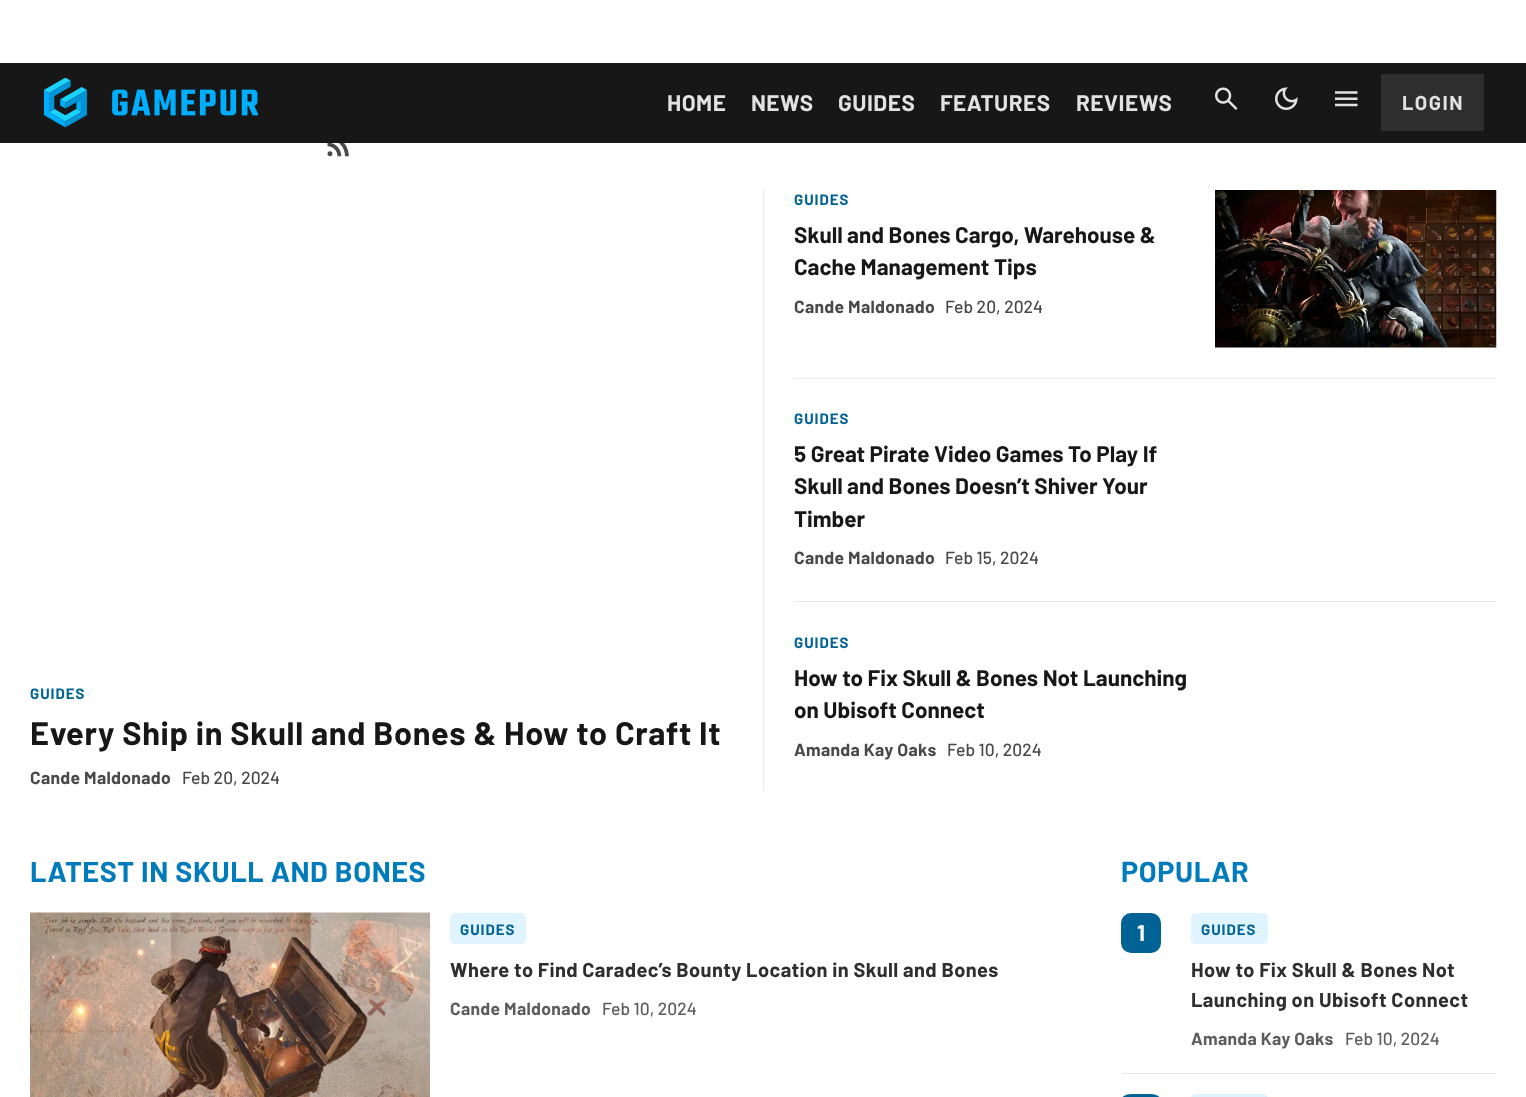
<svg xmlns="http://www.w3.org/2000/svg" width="1526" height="1097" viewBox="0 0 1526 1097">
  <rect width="100%" height="100%" fill="#ffffff"/>
  <rect x="0" y="63" width="1526" height="80" fill="#171717"/>
  <image x="44" y="78" width="214" height="50" href="img1.png"/>
  <text x="667" y="111" font-family="Barlow" font-size="22.5" font-weight="bold" letter-spacing="0.5" fill="#e2e2e2">HOME</text>
  <text x="751" y="111" font-family="Barlow" font-size="22.5" font-weight="bold" letter-spacing="0.5" fill="#e2e2e2">NEWS</text>
  <text x="838" y="111" font-family="Barlow" font-size="22.5" font-weight="bold" letter-spacing="0.5" fill="#e2e2e2">GUIDES</text>
  <text x="940" y="111" font-family="Barlow" font-size="22.5" font-weight="bold" letter-spacing="0.5" fill="#e2e2e2">FEATURES</text>
  <text x="1076" y="111" font-family="Barlow" font-size="22.5" font-weight="bold" letter-spacing="0.5" fill="#e2e2e2">REVIEWS</text>
  <image x="1215" y="87" width="23" height="23" href="img2.png"/>
  <image x="1275" y="87" width="23" height="23" href="img3.png"/>
  <image x="1335" y="91" width="23" height="16" href="img4.png"/>
  <rect x="1381" y="74" width="103" height="57" fill="#2e2e2e"/>
  <text x="1402" y="110" font-family="Barlow" font-size="20" font-weight="bold" letter-spacing="1.5" fill="#e2e2e2">LOGIN</text>
  <image x="327" y="143" width="22" height="14" href="img5.png"/>
  <text x="30" y="699" font-family="Barlow" font-size="15" font-weight="bold" letter-spacing="1" fill="#006295">GUIDES</text>
  <text x="30" y="745" font-family="Barlow" font-size="32.5" font-weight="bold" letter-spacing="0.65" fill="#171717">Every Ship in Skull and Bones &amp; How to Craft It</text>
  <text x="30" y="784" font-family="Barlow" font-size="17.5" font-weight="bold" letter-spacing="0.3" fill="#494949">Cande Maldonado</text>
  <text x="182" y="784" font-family="Barlow" font-size="17.5" font-weight="500" fill="#494949">Feb 20, 2024</text>
  <rect x="763" y="190" width="1" height="601" fill="#e9e9e9"/>
  <text x="794" y="205" font-family="Barlow" font-size="15" font-weight="bold" letter-spacing="1" fill="#006295">GUIDES</text>
  <text x="794" y="243" font-family="Barlow" font-size="22.5" font-weight="bold" fill="#171717">Skull and Bones Cargo, Warehouse &amp;</text>
  <text x="794" y="275" font-family="Barlow" font-size="22.5" font-weight="bold" fill="#171717">Cache Management Tips</text>
  <text x="794" y="313" font-family="Barlow" font-size="17.5" font-weight="bold" letter-spacing="0.3" fill="#494949">Cande Maldonado</text>
  <text x="945" y="313" font-family="Barlow" font-size="17.5" font-weight="500" fill="#494949">Feb 20, 2024</text>
  <image x="1215" y="190" width="282" height="158" href="img6.png"/>
  <rect x="794" y="378" width="702" height="1" fill="#e9e9e9"/>
  <text x="794" y="424" font-family="Barlow" font-size="15" font-weight="bold" letter-spacing="1" fill="#006295">GUIDES</text>
  <text x="794" y="462" font-family="Barlow" font-size="22.5" font-weight="bold" fill="#171717">5 Great Pirate Video Games To Play If</text>
  <text x="794" y="494" font-family="Barlow" font-size="22.5" font-weight="bold" fill="#171717">Skull and Bones Doesn’t Shiver Your</text>
  <text x="794" y="527" font-family="Barlow" font-size="22.5" font-weight="bold" fill="#171717">Timber</text>
  <text x="794" y="564" font-family="Barlow" font-size="17.5" font-weight="bold" letter-spacing="0.3" fill="#494949">Cande Maldonado</text>
  <text x="945" y="564" font-family="Barlow" font-size="17.5" font-weight="500" fill="#494949">Feb 15, 2024</text>
  <rect x="794" y="601" width="702" height="1" fill="#e9e9e9"/>
  <text x="794" y="648" font-family="Barlow" font-size="15" font-weight="bold" letter-spacing="1" fill="#006295">GUIDES</text>
  <text x="794" y="686" font-family="Barlow" font-size="22.5" font-weight="bold" fill="#171717">How to Fix Skull &amp; Bones Not Launching</text>
  <text x="794" y="718" font-family="Barlow" font-size="22.5" font-weight="bold" fill="#171717">on Ubisoft Connect</text>
  <text x="794" y="756" font-family="Barlow" font-size="17.5" font-weight="bold" letter-spacing="0.3" fill="#494949">Amanda Kay Oaks</text>
  <text x="947" y="756" font-family="Barlow" font-size="17.5" font-weight="500" fill="#494949">Feb 10, 2024</text>
  <text x="30" y="882" font-family="Barlow" font-size="28.75" font-weight="bold" letter-spacing="0.6" fill="#007bbb">LATEST IN SKULL AND BONES</text>
  <image x="30" y="912" width="400" height="185" href="img7.png"/>
  <rect x="450" y="913" width="76" height="31" rx="5" fill="#e0f4ff"/>
  <text x="460" y="935" font-family="Barlow" font-size="15" font-weight="bold" letter-spacing="1" fill="#006295">GUIDES</text>
  <text x="450" y="977" font-family="Barlow" font-size="20" font-weight="bold" letter-spacing="0.4" fill="#2e2e2e">Where to Find Caradec’s Bounty Location in Skull and Bones</text>
  <text x="450" y="1015" font-family="Barlow" font-size="17.5" font-weight="bold" letter-spacing="0.3" fill="#5d5d5d">Cande Maldonado</text>
  <text x="602" y="1015" font-family="Barlow" font-size="17.5" font-weight="500" fill="#5d5d5d">Feb 10, 2024</text>
  <text x="1121" y="882" font-family="Barlow" font-size="28.75" font-weight="bold" letter-spacing="0.6" fill="#007bbb">POPULAR</text>
  <rect x="1121" y="913" width="40" height="40" rx="10" fill="#006295"/>
  <text x="1137" y="941" font-family="Barlow" font-size="22.5" font-weight="bold" letter-spacing="0.5" fill="#fefefe">1</text>
  <rect x="1191" y="913" width="77" height="31" rx="5" fill="#e0f4ff"/>
  <text x="1201" y="935" font-family="Barlow" font-size="15" font-weight="bold" letter-spacing="1" fill="#006295">GUIDES</text>
  <text x="1191" y="977" font-family="Barlow" font-size="20" font-weight="bold" letter-spacing="0.4" fill="#2e2e2e">How to Fix Skull &amp; Bones Not</text>
  <text x="1191" y="1007" font-family="Barlow" font-size="20" font-weight="bold" letter-spacing="0.4" fill="#2e2e2e">Launching on Ubisoft Connect</text>
  <text x="1191" y="1045" font-family="Barlow" font-size="17.5" font-weight="bold" letter-spacing="0.3" fill="#5d5d5d">Amanda Kay Oaks</text>
  <text x="1345" y="1045" font-family="Barlow" font-size="17.5" font-weight="500" fill="#5d5d5d">Feb 10, 2024</text>
  <rect x="1121" y="1073" width="375" height="1" fill="#e9e9e9"/>
  <rect x="1121" y="1094" width="40" height="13" rx="10" fill="#006295"/>
  <rect x="1191" y="1094" width="77" height="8" rx="5" fill="#e0f4ff"/>
</svg>
